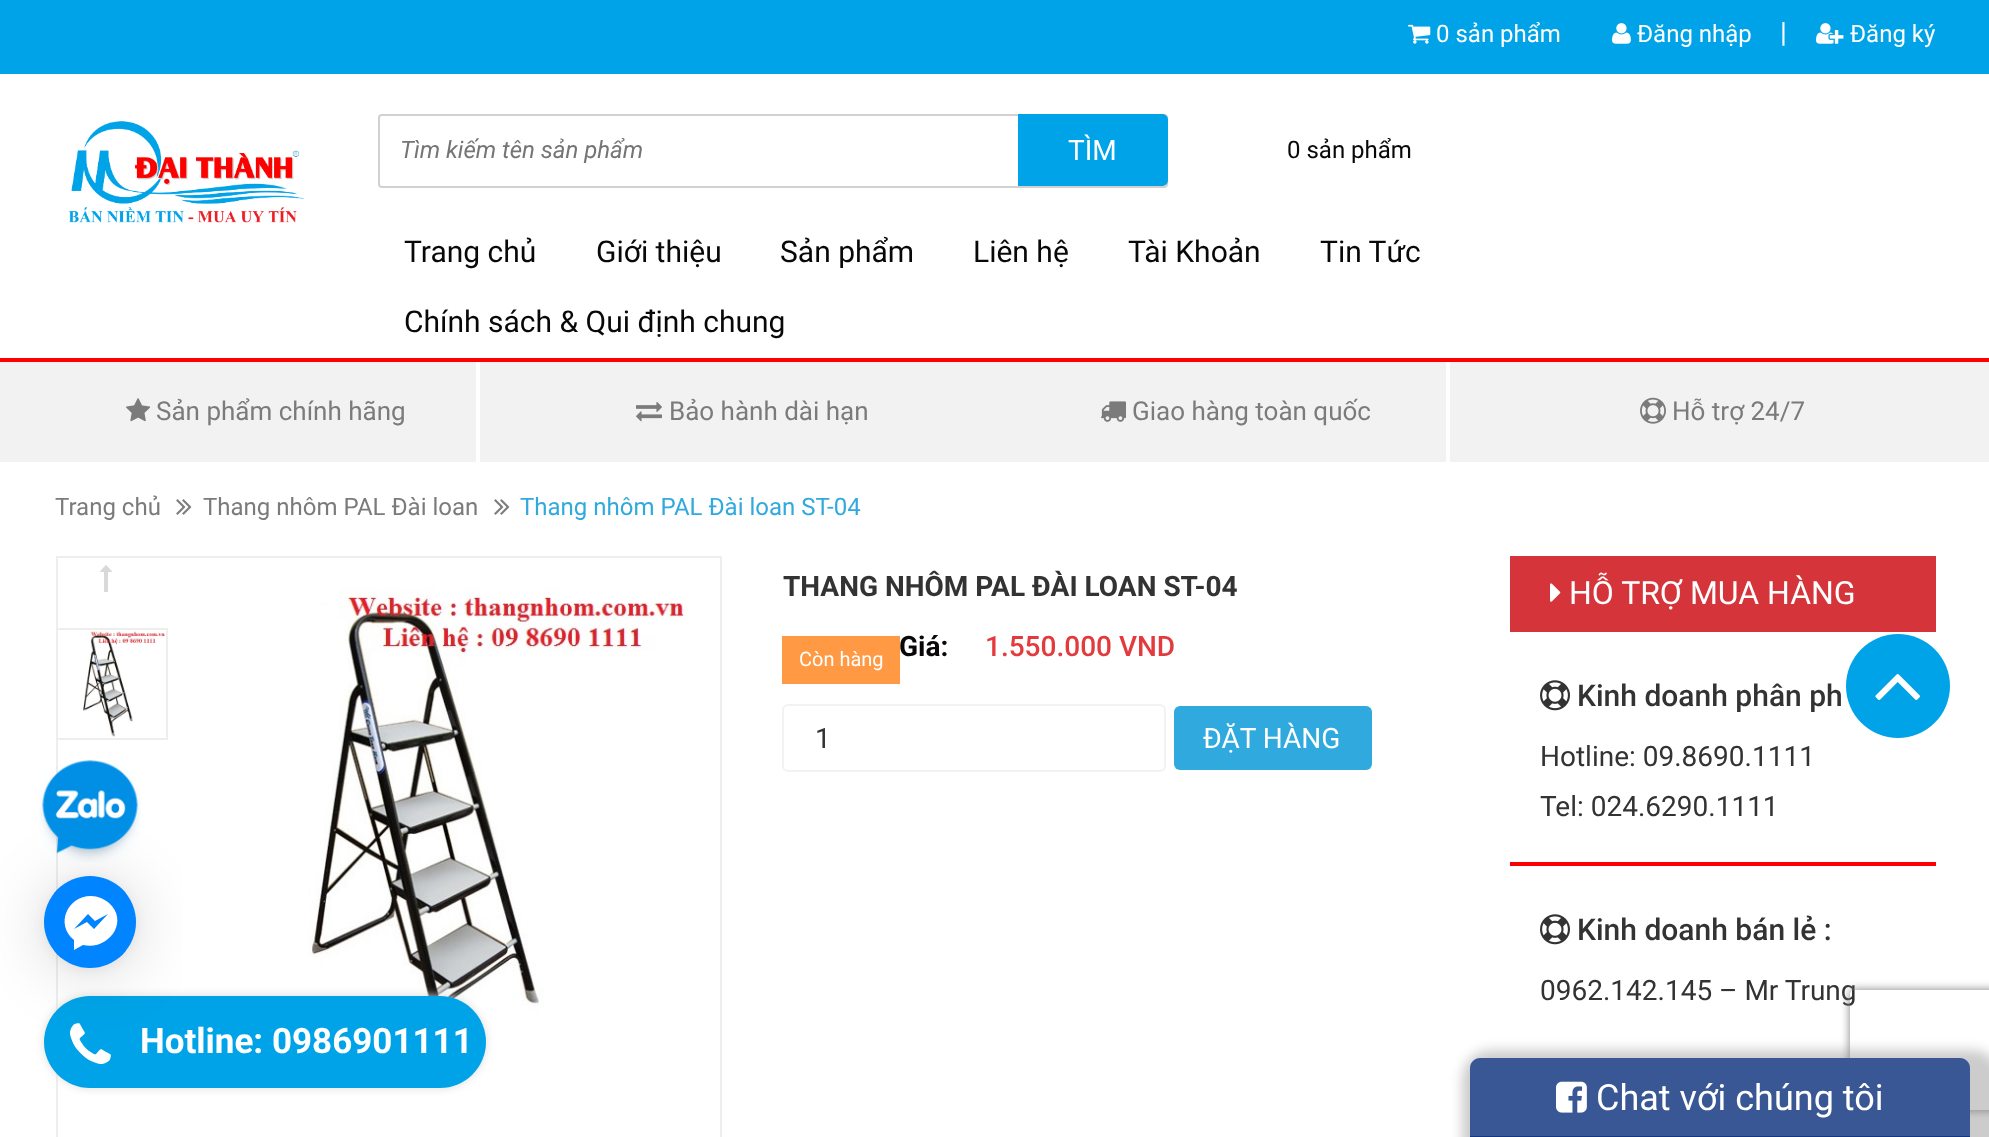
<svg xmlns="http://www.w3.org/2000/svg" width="1989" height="1137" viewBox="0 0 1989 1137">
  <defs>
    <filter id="blur1" x="-50%" y="-200%" width="200%" height="500%"><feGaussianBlur stdDeviation="6"/></filter>
    <clipPath id="clip1"><path d="M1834 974H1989V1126H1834ZM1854 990H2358C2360 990 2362 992 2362 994V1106C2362 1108 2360 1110 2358 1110H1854C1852 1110 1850 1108 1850 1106V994C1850 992 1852 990 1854 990Z" clip-rule="evenodd"/></clipPath>
    <filter id="blur2" x="-50%" y="-200%" width="200%" height="500%"><feGaussianBlur stdDeviation="5"/></filter>
    <filter id="blur3" x="-50%" y="-200%" width="200%" height="500%"><feGaussianBlur stdDeviation="32"/></filter>
    <clipPath id="clip2"><rect x="44" y="876" width="92" height="92" rx="46"/></clipPath>
  </defs>
  <rect width="100%" height="100%" fill="#ffffff"/>
  <rect x="0" y="0" width="1989" height="74" fill="#00a3e8"/>
  <image x="1408" y="24" width="23" height="20" href="img1.png"/>
  <text x="1436" y="42" font-family="Roboto" font-size="24" fill="#ffffff">0 sản phẩm</text>
  <image x="1612" y="23" width="19" height="21" href="img2.png"/>
  <text x="1637" y="42" font-family="Roboto" font-size="24" fill="#ffffff">Đăng nhập</text>
  <text x="1780" y="42" font-family="Roboto" font-size="28" fill="#ffffff">|</text>
  <image x="1816" y="23" width="28" height="21" href="img3.png"/>
  <text x="1850" y="42" font-family="Roboto" font-size="24" fill="#ffffff">Đăng ký</text>
  <image x="68" y="121" width="236" height="107" href="img4.png"/>
  <rect x="379" y="115" width="788" height="72" rx="3" fill="none" stroke="#d1d1d1" stroke-width="2"/>
  <text x="400" y="158" font-family="Roboto" font-size="24" font-style="italic" fill="#757575">Tìm kiếm tên sản phẩm</text>
  <path d="M1018 114H1162C1165.5 114 1168 116.5 1168 120V180C1168 183.5 1165.5 186 1162 186H1018Z" fill="#00a3e8"/>
  <text x="1068" y="160" font-family="Roboto" font-size="28" fill="#ffffff">TÌM</text>
  <text x="1287" y="158" font-family="Roboto" font-size="24" fill="#090707">0 sản phẩm</text>
  <text x="404" y="262" font-family="Roboto" font-size="30" fill="#090707">Trang chủ</text>
  <text x="596" y="262" font-family="Roboto" font-size="30" fill="#090707">Giới thiệu</text>
  <text x="780" y="262" font-family="Roboto" font-size="30" fill="#090707">Sản phẩm</text>
  <text x="973" y="262" font-family="Roboto" font-size="30" fill="#090707">Liên hệ</text>
  <text x="1128" y="262" font-family="Roboto" font-size="30" fill="#090707">Tài Khoản</text>
  <text x="1320" y="262" font-family="Roboto" font-size="30" fill="#090707">Tin Tức</text>
  <text x="404" y="332" font-family="Roboto" font-size="30" fill="#090707">Chính sách &amp; Qui định chung</text>
  <rect x="0" y="362" width="1989" height="100" fill="#f2f2f2"/>
  <rect x="0" y="358" width="1989" height="4" fill="#fd0000"/>
  <rect x="476" y="362" width="4" height="100" fill="#ffffff"/>
  <image x="126" y="398" width="25" height="24" href="img5.png"/>
  <text x="156" y="420" font-family="Roboto" font-size="26" fill="#7b7b7b">Sản phẩm chính hãng</text>
  <image x="636" y="402" width="26" height="20" href="img6.png"/>
  <text x="669" y="420" font-family="Roboto" font-size="26" fill="#7b7b7b">Bảo hành dài hạn</text>
  <rect x="1446" y="362" width="4" height="100" fill="#ffffff"/>
  <image x="1101" y="401" width="25" height="21" href="img7.png"/>
  <text x="1132" y="420" font-family="Roboto" font-size="26" fill="#7b7b7b">Giao hàng toàn quốc</text>
  <image x="1640" y="397" width="26" height="27" href="img8.png"/>
  <text x="1672" y="420" font-family="Roboto" font-size="26" fill="#7b7b7b">Hỗ trợ 24/7</text>
  <text x="55" y="515" font-family="Roboto" font-size="24" fill="#7b7b7b">Trang chủ</text>
  <image x="176" y="499" width="16" height="16" href="img9.png"/>
  <text x="203" y="515" font-family="Roboto" font-size="24" fill="#7b7b7b">Thang nhôm PAL Đài loan</text>
  <image x="494" y="499" width="16" height="16" href="img9.png"/>
  <text x="520" y="515" font-family="Roboto" font-size="24" fill="#30a9de">Thang nhôm PAL Đài loan ST-04</text>
  <rect x="57" y="557" width="664" height="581" fill="none" stroke="#eeeeee" stroke-width="2"/>
  <image x="100" y="565" width="12" height="27" href="img10.png"/>
  <rect x="58" y="628" width="110" height="2" fill="#eeeeee"/>
  <rect x="166" y="628" width="2" height="112" fill="#eeeeee"/>
  <rect x="58" y="738" width="110" height="2" fill="#eeeeee"/>
  <image x="83" y="631" width="82" height="106" href="img11.png"/>
  <image x="308" y="588" width="378" height="487" href="img12.png"/>
  <text x="783" y="596" font-family="Roboto" font-size="28" font-weight="bold" fill="#333333">THANG NHÔM PAL ĐÀI LOAN ST-04</text>
  <text x="899" y="656" font-family="Roboto" font-size="28" font-weight="bold" fill="#090707">Giá:</text>
  <text x="985" y="656" font-family="Roboto" font-size="28" font-weight="500" fill="#e33a3d">1.550.000 VND</text>
  <rect x="782" y="636" width="118" height="48" fill="#ff9944"/>
  <text x="799" y="666" font-family="Roboto" font-size="20" fill="#ffffff">Còn hàng</text>
  <rect x="783" y="705" width="382" height="66" rx="5" fill="none" stroke="#f2f2f2" stroke-width="2"/>
  <text x="815" y="748" font-family="Roboto" font-size="28" fill="#333333">1</text>
  <rect x="1174" y="706" width="198" height="64" rx="6" fill="#30a9de"/>
  <text x="1203" y="748" font-family="Roboto" font-size="28" fill="#ffffff">ĐẶT HÀNG</text>
  <rect x="1510" y="556" width="426" height="76" fill="#d5343a"/>
  <image x="1550" y="583" width="11" height="19" href="img13.png"/>
  <text x="1569" y="604" font-family="Roboto" font-size="32" fill="#ffffff">HỖ TRỢ MUA HÀNG</text>
  <rect x="1510" y="862" width="426" height="4" fill="#ff0000"/>
  <image x="1540" y="680" width="30" height="31" href="img14.png"/>
  <text x="1577" y="706" font-family="Roboto" font-size="30" font-weight="500" fill="#333333">Kinh doanh phân ph</text>
  <text x="1540" y="766" font-family="Roboto" font-size="28" fill="#333333">Hotline: 09.8690.1111</text>
  <text x="1540" y="816" font-family="Roboto" font-size="28" fill="#333333">Tel: 024.6290.1111</text>
  <image x="1540" y="914" width="30" height="31" href="img14.png"/>
  <text x="1577" y="940" font-family="Roboto" font-size="30" font-weight="500" fill="#333333">Kinh doanh bán lẻ :</text>
  <text x="1540" y="1000" font-family="Roboto" font-size="28" fill="#333333">0962.142.145 – Mr Trung</text>
  <circle cx="1898" cy="686" r="52" fill="#00a3e8"/>
  <image x="1875" y="674" width="45" height="26" href="img15.png"/>
  <rect x="1462" y="1050" width="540" height="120" rx="30" fill="#000000" fill-opacity="0.2" filter="url(#blur1)"/>
  <g clip-path="url(#clip1)">
    <rect x="1850" y="990" width="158" height="120" rx="4" fill="#808080" filter="url(#blur2)"/>
  </g>
  <path d="M1480 1058H1960C1965.5 1058 1970 1062.5 1970 1068V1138H1470V1068C1470 1062.5 1474.5 1058 1480 1058Z" fill="#3a5795"/>
  <rect x="1470" y="1136" width="500" height="1" fill="#133783"/>
  <image x="1556" y="1081" width="31" height="32" href="img16.png"/>
  <text x="1596" y="1110" font-family="Roboto" font-size="36" fill="#ffffff">Chat với chúng tôi</text>
  <rect x="44" y="996" width="442" height="92" rx="46" fill="#dddddd" filter="url(#blur2)"/>
  <rect x="44" y="996" width="442" height="92" rx="46" fill="#00a3e8"/>
  <image x="70" y="1023" width="41" height="41" href="img18.png"/>
  <rect x="44" y="880" width="92" height="92" rx="46" fill="#000000" fill-opacity="0.16" filter="url(#blur3)"/>
  <rect x="44" y="878" width="92" height="92" rx="46" fill="#000000" fill-opacity="0.06" filter="url(#blur1)"/>
  <image x="39" y="760" width="102" height="102" href="img17.png"/>
  <circle cx="90" cy="922" r="46" fill="#0084ff"/>
  <g clip-path="url(#clip2)">
    <rect x="54" y="886" width="72" height="72" fill="#0084ff"/>
  </g>
  <path d="M91 896C67 896 55 925 74 940V950L83 945C108 951 130 922 109 903C104 899 98 896 91 896ZM94 929L87 922L74 929L88 914L95 921L108 914Z" fill="#ffffff"/>
  <text x="140" y="1053" font-family="Roboto" font-size="35" font-weight="bold" fill="#ffffff">Hotline: 0986901111</text>
</svg>
